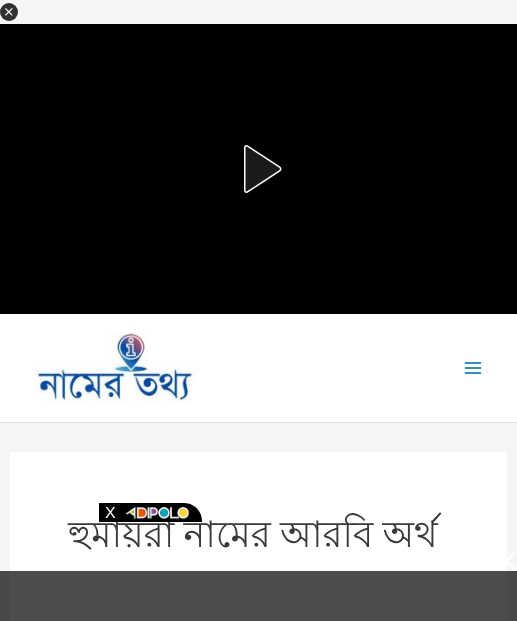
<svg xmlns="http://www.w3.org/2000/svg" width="517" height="621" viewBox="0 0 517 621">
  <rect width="100%" height="100%" fill="#f5f5f5"/>
  <circle cx="9" cy="12" r="9" fill="#313131"/>
  <image x="5" y="8" width="8" height="8" href="img1.png"/>
  <rect x="0" y="24" width="517" height="290" fill="#000000"/>
  <image x="244" y="145" width="38" height="48" href="img2.png"/>
  <rect x="10" y="452" width="497" height="169" fill="#ffffff"/>
  <text x="68" y="547" word-spacing="-1" font-family="Lohit Bengali" font-size="36.5" fill="#3a3a3a">হুমায়রা নামের আরবি অর্থ</text>
  <path d="M99 503H184C194 503 202 511 202 521V522H99Z" fill="#000000"/>
  <text x="105" y="518" font-family="Liberation Sans" font-size="16" fill="#ffffff">X</text>
  <image x="125" y="507" width="65" height="13" href="img3.png"/>
  <rect x="0" y="314" width="517" height="108" fill="#ffffff"/>
  <rect x="0" y="422" width="517" height="1" fill="#e5e5e5"/>
  <image x="34" y="333" width="165" height="70" href="img4.png"/>
  <image x="464" y="362" width="18" height="12" href="img5.png"/>
  <rect x="0" y="571" width="517" height="50" fill="#000000" fill-opacity="0.7"/>
  <image x="507" y="552" width="8" height="19" href="img6.png"/>
</svg>
